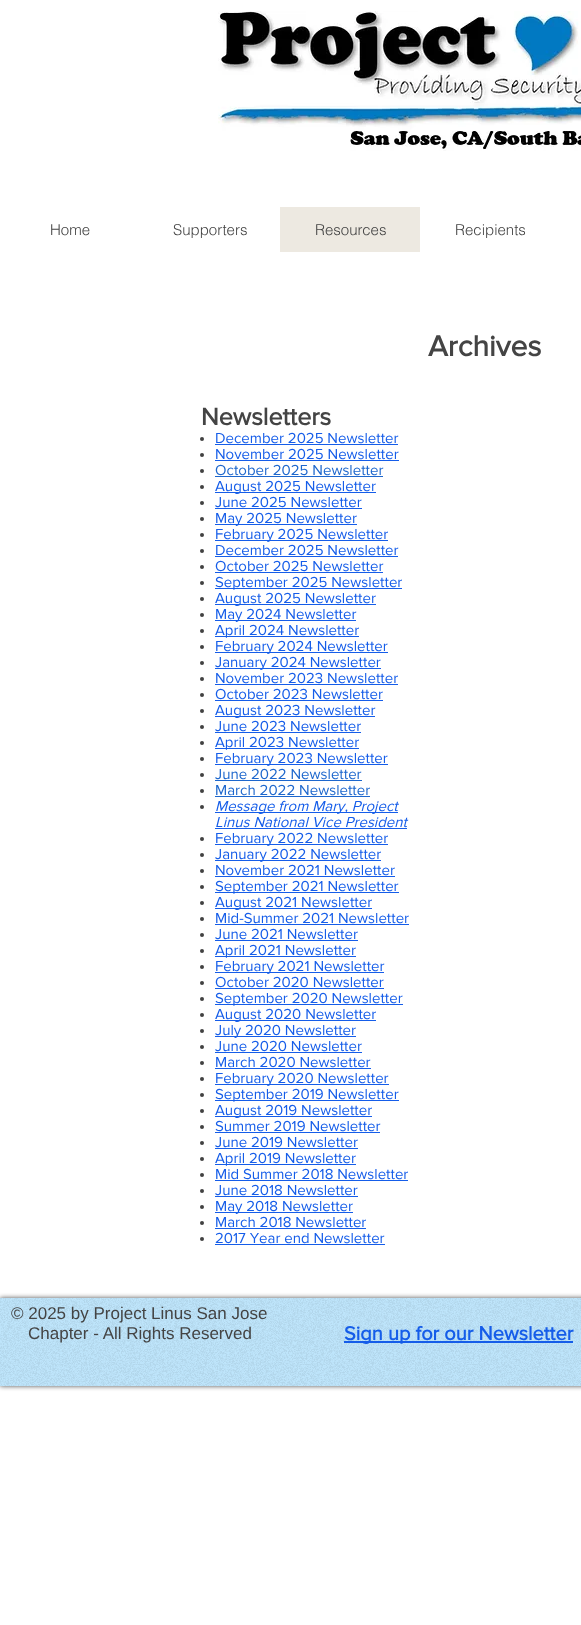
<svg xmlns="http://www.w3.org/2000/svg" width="581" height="1625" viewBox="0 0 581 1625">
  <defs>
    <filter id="blur1" x="-50%" y="-200%" width="200%" height="500%"><feGaussianBlur stdDeviation="2.5"/></filter>
  </defs>
  <rect width="100%" height="100%" fill="#ffffff"/>
  <image x="218" y="11" width="363" height="140" href="img1.png"/>
  <text x="50" y="235" font-family="helvetica" font-size="15" font-weight="300" fill="#444444">Home</text>
  <text x="173" y="235" font-family="helvetica" font-size="15" font-weight="300" fill="#444444">Supporters</text>
  <rect x="280" y="207" width="140" height="45" fill="#ede9e1"/>
  <text x="315" y="235" font-family="helvetica" font-size="15" font-weight="300" fill="#444444">Resources</text>
  <text x="455" y="235" font-family="helvetica" font-size="15" font-weight="300" fill="#444444">Recipients</text>
  <text x="428" y="356" font-family="'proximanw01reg'" font-size="30" font-weight="bold" fill="#444444">Archives</text>
  <text x="201" y="425" font-family="'proximanw01reg'" font-size="25" font-weight="bold" fill="#444444">Newsletters</text>
  <circle cx="202" cy="439" r="2" fill="#414141"/>
  <text x="215" y="443" font-family="'proximanw01reg'" font-size="15" fill="#155de9">December 2025 Newsletter</text>
  <rect x="215" y="444" width="183" height="1" fill="#155de9"/>
  <circle cx="202" cy="455" r="2" fill="#414141"/>
  <text x="215" y="459" font-family="'proximanw01reg'" font-size="15" fill="#155de9">November 2025 Newsletter</text>
  <rect x="215" y="460" width="184" height="1" fill="#155de9"/>
  <circle cx="202" cy="471" r="2" fill="#414141"/>
  <text x="215" y="475" font-family="'proximanw01reg'" font-size="15" fill="#1d67cd">October 2025 Newsletter</text>
  <rect x="215" y="476" width="168" height="1" fill="#1d67cd"/>
  <circle cx="202" cy="487" r="2" fill="#414141"/>
  <rect x="215" y="492" width="161" height="1" fill="#155de9"/>
  <text x="215" y="491" font-family="'proximanw01reg'" font-size="15" fill="#155de9">August 2025 Newsletter</text>
  <circle cx="202" cy="503" r="2" fill="#414141"/>
  <text x="215" y="507" font-family="'proximanw01reg'" font-size="15" fill="#155de9">June 2025 Newsletter</text>
  <rect x="215" y="508" width="147" height="1" fill="#155de9"/>
  <circle cx="202" cy="519" r="2" fill="#414141"/>
  <rect x="215" y="524" width="142" height="1" fill="#155de9"/>
  <text x="215" y="523" font-family="'proximanw01reg'" font-size="15" fill="#155de9">May 2025 Newsletter</text>
  <circle cx="202" cy="535" r="2" fill="#414141"/>
  <rect x="215" y="540" width="173" height="1" fill="#155de9"/>
  <text x="215" y="539" font-family="'proximanw01reg'" font-size="15" fill="#155de9">February 2025 Newsletter</text>
  <circle cx="202" cy="551" r="2" fill="#414141"/>
  <text x="215" y="555" font-family="'proximanw01reg'" font-size="15" fill="#155de9">December 2025 Newsletter</text>
  <rect x="215" y="556" width="183" height="1" fill="#155de9"/>
  <circle cx="202" cy="567" r="2" fill="#414141"/>
  <text x="215" y="571" font-family="'proximanw01reg'" font-size="15" fill="#155de9">October 2025 Newsletter</text>
  <rect x="215" y="572" width="168" height="1" fill="#155de9"/>
  <circle cx="202" cy="583" r="2" fill="#414141"/>
  <rect x="215" y="588" width="187" height="1" fill="#155de9"/>
  <text x="215" y="587" font-family="'proximanw01reg'" font-size="15" fill="#155de9">September 2025 Newsletter</text>
  <circle cx="202" cy="599" r="2" fill="#414141"/>
  <rect x="215" y="604" width="161" height="1" fill="#155de9"/>
  <text x="215" y="603" font-family="'proximanw01reg'" font-size="15" fill="#155de9">August 2025 Newsletter</text>
  <circle cx="202" cy="615" r="2" fill="#414141"/>
  <rect x="215" y="620" width="141" height="1" fill="#155de9"/>
  <text x="215" y="619" font-family="'proximanw01reg'" font-size="15" fill="#155de9">May 2024 Newsletter</text>
  <circle cx="202" cy="631" r="2" fill="#414141"/>
  <rect x="215" y="636" width="144" height="1" fill="#155de9"/>
  <text x="215" y="635" font-family="'proximanw01reg'" font-size="15" fill="#155de9">April 2024 Newsletter</text>
  <circle cx="202" cy="647" r="2" fill="#414141"/>
  <rect x="215" y="652" width="173" height="1" fill="#155de9"/>
  <text x="215" y="651" font-family="'proximanw01reg'" font-size="15" fill="#155de9">February 2024 Newsletter</text>
  <circle cx="202" cy="663" r="2" fill="#414141"/>
  <rect x="215" y="668" width="166" height="1" fill="#155de9"/>
  <text x="215" y="667" font-family="'proximanw01reg'" font-size="15" fill="#155de9">January 2024 Newsletter</text>
  <circle cx="202" cy="679" r="2" fill="#414141"/>
  <text x="215" y="683" font-family="'proximanw01reg'" font-size="15" fill="#155de9">November 2023 Newsletter</text>
  <rect x="215" y="684" width="183" height="1" fill="#155de9"/>
  <circle cx="202" cy="695" r="2" fill="#414141"/>
  <text x="215" y="699" font-family="'proximanw01reg'" font-size="15" fill="#155de9">October 2023 Newsletter</text>
  <rect x="215" y="700" width="168" height="1" fill="#155de9"/>
  <circle cx="202" cy="711" r="2" fill="#414141"/>
  <rect x="215" y="716" width="160" height="1" fill="#155de9"/>
  <text x="215" y="715" font-family="'proximanw01reg'" font-size="15" fill="#155de9">August 2023 Newsletter</text>
  <circle cx="202" cy="727" r="2" fill="#414141"/>
  <text x="215" y="731" font-family="'proximanw01reg'" font-size="15" fill="#155de9">June 2023 Newsletter</text>
  <rect x="215" y="732" width="146" height="1" fill="#155de9"/>
  <circle cx="202" cy="743" r="2" fill="#414141"/>
  <rect x="215" y="748" width="144" height="1" fill="#155de9"/>
  <text x="215" y="747" font-family="'proximanw01reg'" font-size="15" fill="#155de9">April 2023 Newsletter</text>
  <circle cx="202" cy="759" r="2" fill="#414141"/>
  <rect x="215" y="764" width="173" height="1" fill="#155de9"/>
  <text x="215" y="763" font-family="'proximanw01reg'" font-size="15" fill="#155de9">February 2023 Newsletter</text>
  <circle cx="202" cy="775" r="2" fill="#414141"/>
  <text x="215" y="779" font-family="'proximanw01reg'" font-size="15" fill="#1d67cd">June 2022 Newsletter</text>
  <rect x="215" y="780" width="147" height="1" fill="#1d67cd"/>
  <circle cx="202" cy="791" r="2" fill="#414141"/>
  <text x="215" y="795" font-family="'proximanw01reg'" font-size="15" fill="#1d67cd">March 2022 Newsletter</text>
  <rect x="215" y="796" width="155" height="1" fill="#1d67cd"/>
  <circle cx="202" cy="807" r="2" fill="#414141"/>
  <rect x="215" y="812" width="183" height="1" fill="#155de9"/>
  <text x="215" y="811" font-family="'proximanw01reg'" font-size="15" font-style="italic" fill="#155de9">Message from Mary, Project</text>
  <text x="215" y="827" font-family="'proximanw01reg'" font-size="15" font-style="italic" fill="#155de9">Linus National Vice President</text>
  <rect x="215" y="828" width="192" height="1" fill="#155de9"/>
  <circle cx="202" cy="839" r="2" fill="#414141"/>
  <rect x="215" y="844" width="173" height="1" fill="#155de9"/>
  <text x="215" y="843" font-family="'proximanw01reg'" font-size="15" fill="#155de9">February 2022 Newsletter</text>
  <circle cx="202" cy="855" r="2" fill="#414141"/>
  <rect x="215" y="860" width="166" height="1" fill="#155de9"/>
  <text x="215" y="859" font-family="'proximanw01reg'" font-size="15" fill="#155de9">January 2022 Newsletter</text>
  <circle cx="202" cy="871" r="2" fill="#414141"/>
  <text x="215" y="875" font-family="'proximanw01reg'" font-size="15" fill="#155de9">November 2021 Newsletter</text>
  <rect x="215" y="876" width="180" height="1" fill="#155de9"/>
  <circle cx="202" cy="887" r="2" fill="#414141"/>
  <rect x="215" y="892" width="184" height="1" fill="#155de9"/>
  <text x="215" y="891" font-family="'proximanw01reg'" font-size="15" fill="#155de9">September 2021 Newsletter</text>
  <circle cx="202" cy="903" r="2" fill="#414141"/>
  <rect x="215" y="908" width="157" height="1" fill="#155de9"/>
  <text x="215" y="907" font-family="'proximanw01reg'" font-size="15" fill="#155de9">August 2021 Newsletter</text>
  <circle cx="202" cy="919" r="2" fill="#414141"/>
  <text x="215" y="923" font-family="'proximanw01reg'" font-size="15" fill="#155de9">Mid-Summer 2021 Newsletter</text>
  <rect x="215" y="924" width="194" height="1" fill="#155de9"/>
  <circle cx="202" cy="935" r="2" fill="#414141"/>
  <text x="215" y="939" font-family="'proximanw01reg'" font-size="15" fill="#155de9">June 2021 Newsletter</text>
  <rect x="215" y="940" width="143" height="1" fill="#155de9"/>
  <circle cx="202" cy="951" r="2" fill="#414141"/>
  <rect x="215" y="956" width="141" height="1" fill="#155de9"/>
  <text x="215" y="955" font-family="'proximanw01reg'" font-size="15" fill="#155de9">April 2021 Newsletter</text>
  <circle cx="202" cy="967" r="2" fill="#414141"/>
  <rect x="215" y="972" width="169" height="1" fill="#155de9"/>
  <text x="215" y="971" font-family="'proximanw01reg'" font-size="15" fill="#155de9">February 2021 Newsletter</text>
  <circle cx="202" cy="983" r="2" fill="#414141"/>
  <text x="215" y="987" font-family="'proximanw01reg'" font-size="15" fill="#155de9">October 2020 Newsletter</text>
  <rect x="215" y="988" width="169" height="1" fill="#155de9"/>
  <circle cx="202" cy="999" r="2" fill="#414141"/>
  <rect x="215" y="1004" width="188" height="1" fill="#155de9"/>
  <text x="215" y="1003" font-family="'proximanw01reg'" font-size="15" fill="#155de9">September 2020 Newsletter</text>
  <circle cx="202" cy="1015" r="2" fill="#414141"/>
  <rect x="215" y="1020" width="161" height="1" fill="#155de9"/>
  <text x="215" y="1019" font-family="'proximanw01reg'" font-size="15" fill="#155de9">August 2020 Newsletter</text>
  <circle cx="202" cy="1031" r="2" fill="#414141"/>
  <rect x="215" y="1036" width="141" height="1" fill="#155de9"/>
  <text x="215" y="1035" font-family="'proximanw01reg'" font-size="15" fill="#155de9">July 2020 Newsletter</text>
  <circle cx="202" cy="1047" r="2" fill="#414141"/>
  <text x="215" y="1051" font-family="'proximanw01reg'" font-size="15" fill="#155de9">June 2020 Newsletter</text>
  <rect x="215" y="1052" width="147" height="1" fill="#155de9"/>
  <circle cx="202" cy="1063" r="2" fill="#414141"/>
  <text x="215" y="1067" font-family="'proximanw01reg'" font-size="15" fill="#155de9">March 2020 Newsletter</text>
  <rect x="215" y="1068" width="156" height="1" fill="#155de9"/>
  <circle cx="202" cy="1079" r="2" fill="#414141"/>
  <rect x="215" y="1084" width="174" height="1" fill="#155de9"/>
  <text x="215" y="1083" font-family="'proximanw01reg'" font-size="15" fill="#155de9">February 2020 Newsletter</text>
  <circle cx="202" cy="1095" r="2" fill="#414141"/>
  <rect x="215" y="1100" width="184" height="1" fill="#155de9"/>
  <text x="215" y="1099" font-family="'proximanw01reg'" font-size="15" fill="#155de9">September 2019 Newsletter</text>
  <circle cx="202" cy="1111" r="2" fill="#414141"/>
  <rect x="215" y="1116" width="157" height="1" fill="#155de9"/>
  <text x="215" y="1115" font-family="'proximanw01reg'" font-size="15" fill="#155de9">August 2019 Newsletter</text>
  <circle cx="202" cy="1127" r="2" fill="#414141"/>
  <text x="215" y="1131" font-family="'proximanw01reg'" font-size="15" fill="#155de9">Summer 2019 Newsletter</text>
  <rect x="215" y="1132" width="165" height="1" fill="#155de9"/>
  <circle cx="202" cy="1143" r="2" fill="#414141"/>
  <text x="215" y="1147" font-family="'proximanw01reg'" font-size="15" fill="#155de9">June 2019 Newsletter</text>
  <rect x="215" y="1148" width="143" height="1" fill="#155de9"/>
  <circle cx="202" cy="1159" r="2" fill="#414141"/>
  <rect x="215" y="1164" width="141" height="1" fill="#155de9"/>
  <text x="215" y="1163" font-family="'proximanw01reg'" font-size="15" fill="#155de9">April 2019 Newsletter</text>
  <circle cx="202" cy="1175" r="2" fill="#414141"/>
  <text x="215" y="1179" font-family="'proximanw01reg'" font-size="15" fill="#155de9">Mid Summer 2018 Newsletter</text>
  <rect x="215" y="1180" width="193" height="1" fill="#155de9"/>
  <circle cx="202" cy="1191" r="2" fill="#414141"/>
  <text x="215" y="1195" font-family="'proximanw01reg'" font-size="15" fill="#155de9">June 2018 Newsletter</text>
  <rect x="215" y="1196" width="143" height="1" fill="#155de9"/>
  <circle cx="202" cy="1207" r="2" fill="#414141"/>
  <rect x="215" y="1212" width="138" height="1" fill="#155de9"/>
  <text x="215" y="1211" font-family="'proximanw01reg'" font-size="15" fill="#155de9">May 2018 Newsletter</text>
  <circle cx="202" cy="1223" r="2" fill="#414141"/>
  <text x="215" y="1227" font-family="'proximanw01reg'" font-size="15" fill="#155de9">March 2018 Newsletter</text>
  <rect x="215" y="1228" width="151" height="1" fill="#155de9"/>
  <circle cx="202" cy="1239" r="2" fill="#414141"/>
  <text x="215" y="1243" font-family="'proximanw01reg'" font-size="15" fill="#155de9">2017 Year end Newsletter</text>
  <rect x="215" y="1244" width="170" height="1" fill="#155de9"/>
  <rect x="0" y="1298" width="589" height="88" fill="#000000" fill-opacity="0.7" filter="url(#blur1)"/>
  <rect x="0" y="1298" width="581" height="88" fill="#bee5fb"/>
  <image x="0" y="1298" width="581" height="88" href="img2.png"/>
  <text x="11" y="1319" font-family="Liberation Sans" font-size="17" fill="#444444">© 2025 by Project Linus San Jose</text>
  <text x="28" y="1339" font-family="Liberation Sans" font-size="17" fill="#444444">Chapter - All Rights Reserved</text>
  <rect x="344" y="1341" width="229" height="2" fill="#155de9"/>
  <text x="344" y="1340" font-family="'proximanw01reg'" font-size="20" font-weight="bold" fill="#155de9">Sign up for our Newsletter</text>
</svg>
